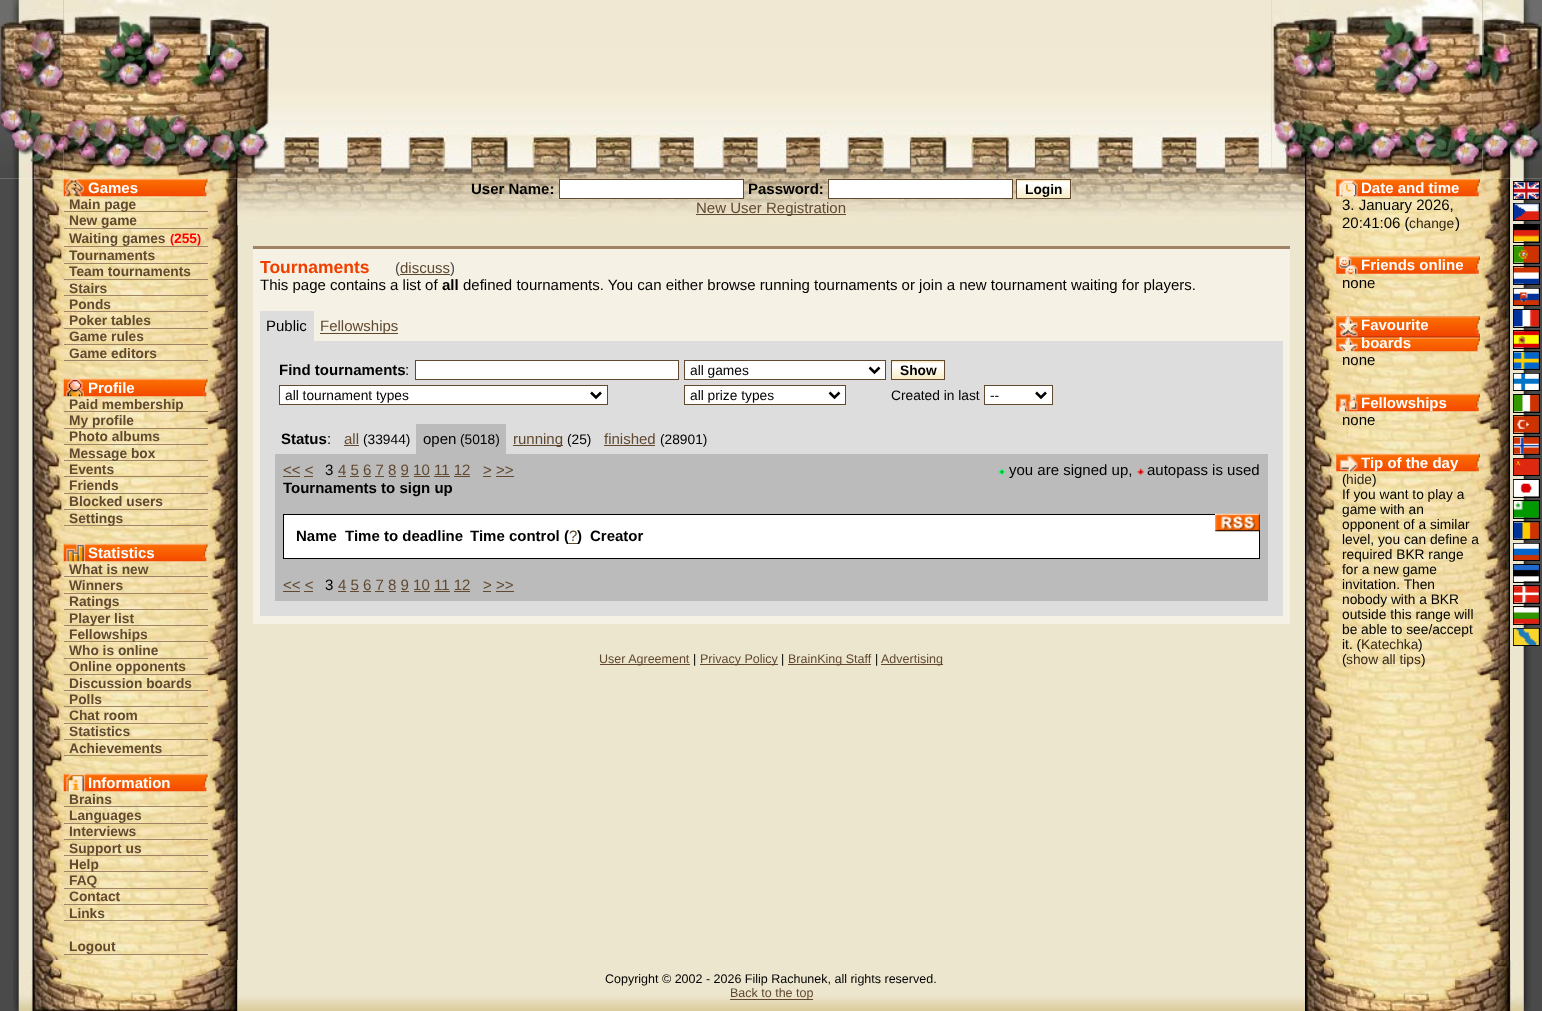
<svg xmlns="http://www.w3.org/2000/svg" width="1542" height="1011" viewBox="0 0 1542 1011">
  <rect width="100%" height="100%" fill="#ffffff"/>
  <image x="63" y="0" width="1420" height="150" href="img1.png"/>
  <image x="0" y="0" width="64" height="179" href="img2.png"/>
  <image x="63" y="0" width="147" height="179" href="img3.png"/>
  <image x="210" y="0" width="60" height="179" href="img4.png"/>
  <image x="270" y="0" width="1001" height="179" href="img5.png"/>
  <rect x="1271" y="0" width="64" height="179" fill="#ddb17d"/>
  <image x="1271" y="0" width="64" height="179" href="img6.png"/>
  <image x="1335" y="0" width="148" height="179" href="img7.png"/>
  <image x="1482" y="0" width="60" height="179" href="img8.png"/>
  <image x="0" y="178" width="33" height="782" href="img9.png"/>
  <rect x="237" y="179" width="1" height="781" fill="#ddb17d"/>
  <image x="32" y="178" width="206" height="782" href="img10.png"/>
  <image x="63" y="178" width="145" height="19" href="img11.png"/>
  <text x="88" y="193" font-family="Liberation Sans" font-size="15" font-weight="bold" fill="#ffffff">Games</text>
  <rect x="64" y="211" width="144" height="1" fill="#a08364"/>
  <text x="69" y="209" font-family="Liberation Sans" font-size="13.75" font-weight="bold" fill="#614930">Main page</text>
  <rect x="64" y="228" width="144" height="1" fill="#a08364"/>
  <text x="69" y="225" font-family="Liberation Sans" font-size="13.75" font-weight="bold" fill="#614930">New game</text>
  <rect x="64" y="246" width="144" height="1" fill="#a08364"/>
  <text x="69" y="243" font-family="Liberation Sans" font-size="13.75" font-weight="bold" fill="#614930">Waiting games</text>
  <text x="170" y="243" font-family="Liberation Sans" font-size="12.5" font-weight="bold" fill="#ff0000">(</text>
  <text x="174" y="243" font-family="Liberation Sans" font-size="13.75" font-weight="bold" fill="#ff0000">255</text>
  <text x="197" y="243" font-family="Liberation Sans" font-size="12.5" font-weight="bold" fill="#ff0000">)</text>
  <rect x="64" y="263" width="144" height="1" fill="#a08364"/>
  <text x="69" y="260" font-family="Liberation Sans" font-size="13.75" font-weight="bold" fill="#614930">Tournaments</text>
  <rect x="64" y="279" width="144" height="1" fill="#a08364"/>
  <text x="69" y="276" font-family="Liberation Sans" font-size="13.75" font-weight="bold" fill="#614930">Team tournaments</text>
  <rect x="64" y="295" width="144" height="1" fill="#a08364"/>
  <text x="69" y="293" font-family="Liberation Sans" font-size="13.75" font-weight="bold" fill="#614930">Stairs</text>
  <rect x="64" y="311" width="144" height="1" fill="#a08364"/>
  <text x="69" y="309" font-family="Liberation Sans" font-size="13.75" font-weight="bold" fill="#614930">Ponds</text>
  <rect x="64" y="328" width="144" height="1" fill="#a08364"/>
  <text x="69" y="325" font-family="Liberation Sans" font-size="13.75" font-weight="bold" fill="#614930">Poker tables</text>
  <rect x="64" y="344" width="144" height="1" fill="#a08364"/>
  <text x="69" y="341" font-family="Liberation Sans" font-size="13.75" font-weight="bold" fill="#614930">Game rules</text>
  <rect x="64" y="360" width="144" height="1" fill="#a08364"/>
  <text x="69" y="358" font-family="Liberation Sans" font-size="13.75" font-weight="bold" fill="#614930">Game editors</text>
  <image x="63" y="378" width="145" height="19" href="img12.png"/>
  <text x="88" y="393" font-family="Liberation Sans" font-size="15" font-weight="bold" fill="#ffffff">Profile</text>
  <rect x="64" y="411" width="144" height="1" fill="#a08364"/>
  <text x="69" y="409" font-family="Liberation Sans" font-size="13.75" font-weight="bold" fill="#614930">Paid membership</text>
  <rect x="64" y="428" width="144" height="1" fill="#a08364"/>
  <text x="69" y="425" font-family="Liberation Sans" font-size="13.75" font-weight="bold" fill="#614930">My profile</text>
  <rect x="64" y="444" width="144" height="1" fill="#a08364"/>
  <text x="69" y="441" font-family="Liberation Sans" font-size="13.75" font-weight="bold" fill="#614930">Photo albums</text>
  <rect x="64" y="460" width="144" height="1" fill="#a08364"/>
  <text x="69" y="458" font-family="Liberation Sans" font-size="13.75" font-weight="bold" fill="#614930">Message box</text>
  <rect x="64" y="476" width="144" height="1" fill="#a08364"/>
  <text x="69" y="474" font-family="Liberation Sans" font-size="13.75" font-weight="bold" fill="#614930">Events</text>
  <rect x="64" y="493" width="144" height="1" fill="#a08364"/>
  <text x="69" y="490" font-family="Liberation Sans" font-size="13.75" font-weight="bold" fill="#614930">Friends</text>
  <rect x="64" y="509" width="144" height="1" fill="#a08364"/>
  <text x="69" y="506" font-family="Liberation Sans" font-size="13.75" font-weight="bold" fill="#614930">Blocked users</text>
  <rect x="64" y="525" width="144" height="1" fill="#a08364"/>
  <text x="69" y="523" font-family="Liberation Sans" font-size="13.75" font-weight="bold" fill="#614930">Settings</text>
  <image x="63" y="543" width="145" height="19" href="img13.png"/>
  <text x="88" y="558" font-family="Liberation Sans" font-size="15" font-weight="bold" fill="#ffffff">Statistics</text>
  <rect x="64" y="576" width="144" height="1" fill="#a08364"/>
  <text x="69" y="574" font-family="Liberation Sans" font-size="13.75" font-weight="bold" fill="#614930">What is new</text>
  <rect x="64" y="593" width="144" height="1" fill="#a08364"/>
  <text x="69" y="590" font-family="Liberation Sans" font-size="13.75" font-weight="bold" fill="#614930">Winners</text>
  <rect x="64" y="609" width="144" height="1" fill="#a08364"/>
  <text x="69" y="606" font-family="Liberation Sans" font-size="13.75" font-weight="bold" fill="#614930">Ratings</text>
  <rect x="64" y="625" width="144" height="1" fill="#a08364"/>
  <text x="69" y="623" font-family="Liberation Sans" font-size="13.75" font-weight="bold" fill="#614930">Player list</text>
  <rect x="64" y="641" width="144" height="1" fill="#a08364"/>
  <text x="69" y="639" font-family="Liberation Sans" font-size="13.75" font-weight="bold" fill="#614930">Fellowships</text>
  <rect x="64" y="658" width="144" height="1" fill="#a08364"/>
  <text x="69" y="655" font-family="Liberation Sans" font-size="13.75" font-weight="bold" fill="#614930">Who is online</text>
  <rect x="64" y="674" width="144" height="1" fill="#a08364"/>
  <text x="69" y="671" font-family="Liberation Sans" font-size="13.75" font-weight="bold" fill="#614930">Online opponents</text>
  <rect x="64" y="690" width="144" height="1" fill="#a08364"/>
  <text x="69" y="688" font-family="Liberation Sans" font-size="13.75" font-weight="bold" fill="#614930">Discussion boards</text>
  <rect x="64" y="706" width="144" height="1" fill="#a08364"/>
  <text x="69" y="704" font-family="Liberation Sans" font-size="13.75" font-weight="bold" fill="#614930">Polls</text>
  <rect x="64" y="723" width="144" height="1" fill="#a08364"/>
  <text x="69" y="720" font-family="Liberation Sans" font-size="13.75" font-weight="bold" fill="#614930">Chat room</text>
  <rect x="64" y="739" width="144" height="1" fill="#a08364"/>
  <text x="69" y="736" font-family="Liberation Sans" font-size="13.75" font-weight="bold" fill="#614930">Statistics</text>
  <rect x="64" y="755" width="144" height="1" fill="#a08364"/>
  <text x="69" y="753" font-family="Liberation Sans" font-size="13.75" font-weight="bold" fill="#614930">Achievements</text>
  <image x="63" y="773" width="145" height="19" href="img14.png"/>
  <text x="88" y="788" font-family="Liberation Sans" font-size="15" font-weight="bold" fill="#ffffff">Information</text>
  <rect x="64" y="806" width="144" height="1" fill="#a08364"/>
  <text x="69" y="804" font-family="Liberation Sans" font-size="13.75" font-weight="bold" fill="#614930">Brains</text>
  <rect x="64" y="823" width="144" height="1" fill="#a08364"/>
  <text x="69" y="820" font-family="Liberation Sans" font-size="13.75" font-weight="bold" fill="#614930">Languages</text>
  <rect x="64" y="839" width="144" height="1" fill="#a08364"/>
  <text x="69" y="836" font-family="Liberation Sans" font-size="13.75" font-weight="bold" fill="#614930">Interviews</text>
  <rect x="64" y="855" width="144" height="1" fill="#a08364"/>
  <text x="69" y="853" font-family="Liberation Sans" font-size="13.75" font-weight="bold" fill="#614930">Support us</text>
  <rect x="64" y="871" width="144" height="1" fill="#a08364"/>
  <text x="69" y="869" font-family="Liberation Sans" font-size="13.75" font-weight="bold" fill="#614930">Help</text>
  <rect x="64" y="888" width="144" height="1" fill="#a08364"/>
  <text x="69" y="885" font-family="Liberation Sans" font-size="13.75" font-weight="bold" fill="#614930">FAQ</text>
  <rect x="64" y="904" width="144" height="1" fill="#a08364"/>
  <text x="69" y="901" font-family="Liberation Sans" font-size="13.75" font-weight="bold" fill="#614930">Contact</text>
  <rect x="64" y="920" width="144" height="1" fill="#a08364"/>
  <text x="69" y="918" font-family="Liberation Sans" font-size="13.75" font-weight="bold" fill="#614930">Links</text>
  <rect x="64" y="954" width="144" height="1" fill="#a08364"/>
  <text x="69" y="951" font-family="Liberation Sans" font-size="13.75" font-weight="bold" fill="#614930">Logout</text>
  <rect x="238" y="225" width="1067" height="735" fill="#ede6ce"/>
  <image x="237" y="178" width="1068" height="47" href="img15.png"/>
  <text x="471" y="194" font-family="Liberation Sans" font-size="15" font-weight="bold" fill="#000000">User Name:</text>
  <rect x="559.5" y="179.5" width="184" height="19" fill="#ffffff" stroke="#614930"/>
  <text x="748" y="194" font-family="Liberation Sans" font-size="15" font-weight="bold" fill="#000000">Password:</text>
  <rect x="828.5" y="179.5" width="184" height="19" fill="#ffffff" stroke="#614930"/>
  <image x="1017" y="180" width="55" height="19" href="img16.png"/>
  <rect x="1016.5" y="179.5" width="54" height="19" fill="none" stroke="#614930"/>
  <text x="1025" y="194" font-family="Liberation Sans" font-size="13.75" font-weight="bold" fill="#000000">Login</text>
  <rect x="696" y="214" width="150" height="1" fill="#614930"/>
  <text x="696" y="213" font-family="Liberation Sans" font-size="15" fill="#614930">New User Registration</text>
  <rect x="253" y="249" width="1037" height="375" fill="#f5f1e4"/>
  <rect x="253" y="246" width="1037" height="3" fill="#a08364"/>
  <text x="260" y="273" font-family="Liberation Sans" font-size="17.5" font-weight="bold" fill="#ef4000">Tournaments</text>
  <text x="395" y="273" font-family="Liberation Sans" font-size="15" fill="#4a4a4a">(</text>
  <rect x="400" y="274" width="50" height="1" fill="#614930"/>
  <text x="400" y="273" font-family="Liberation Sans" font-size="15" fill="#614930">discuss</text>
  <text x="450" y="273" font-family="Liberation Sans" font-size="15" fill="#4a4a4a">)</text>
  <text x="260" y="290" font-family="Liberation Sans" font-size="15" fill="#000000">This page contains a list of</text>
  <text x="442" y="290" font-family="Liberation Sans" font-size="15" font-weight="bold" fill="#000000">all</text>
  <text x="463" y="290" font-family="Liberation Sans" font-size="15" fill="#000000">defined tournaments. You can either browse running tournaments or join a new tournament waiting for players.</text>
  <rect x="260" y="311" width="54" height="30" fill="#dddddd"/>
  <text x="266" y="331" font-family="Liberation Sans" font-size="15" fill="#000000">Public</text>
  <rect x="320" y="333" width="78" height="1" fill="#614930"/>
  <text x="320" y="331" font-family="Liberation Sans" font-size="15" fill="#614930">Fellowships</text>
  <rect x="260" y="341" width="1023" height="275" fill="#dddddd"/>
  <text x="279" y="375" font-family="Liberation Sans" font-size="15" font-weight="bold" fill="#000000">Find tournaments</text>
  <text x="405" y="375" font-family="Liberation Sans" font-size="15" fill="#000000">:</text>
  <rect x="415.5" y="360.5" width="263" height="19" fill="#ffffff" stroke="#614930"/>
  <rect x="684.5" y="360.5" width="201" height="19" fill="#ffffff" stroke="#614930"/>
  <path d="M869.5 367.5L874.5 372.5L879.5 367.5" fill="none" stroke="#000000" stroke-width="2.5"/>
  <text x="690" y="375" font-family="Liberation Sans" font-size="13.75" fill="#000000">all games</text>
  <rect x="892" y="361" width="52" height="1" fill="#f6ecc2"/>
  <image x="892" y="362" width="52" height="17" href="img17.png"/>
  <rect x="891.5" y="360.5" width="53" height="19" fill="none" stroke="#614930"/>
  <text x="900" y="375" font-family="Liberation Sans" font-size="13.75" font-weight="bold" fill="#000000">Show</text>
  <rect x="279.5" y="385.5" width="328" height="19" fill="#ffffff" stroke="#614930"/>
  <path d="M591 392.5L596 397.5L601 392.5" fill="none" stroke="#000000" stroke-width="2.5"/>
  <text x="285" y="400" font-family="Liberation Sans" font-size="13.75" fill="#000000">all tournament types</text>
  <rect x="684.5" y="385.5" width="161" height="19" fill="#ffffff" stroke="#614930"/>
  <path d="M829.5 392.5L834.5 397.5L839.5 392.5" fill="none" stroke="#000000" stroke-width="2.5"/>
  <text x="690" y="400" font-family="Liberation Sans" font-size="13.75" fill="#000000">all prize types</text>
  <text x="891" y="400" font-family="Liberation Sans" font-size="13.75" fill="#000000">Created in last</text>
  <rect x="984.5" y="385.5" width="68" height="19" fill="#ffffff" stroke="#614930"/>
  <path d="M1036 392.5L1041 397.5L1046 392.5" fill="none" stroke="#000000" stroke-width="2.5"/>
  <text x="990" y="400" font-family="Liberation Sans" font-size="13.75" fill="#000000">--</text>
  <text x="281" y="444" font-family="Liberation Sans" font-size="15" font-weight="bold" fill="#000000">Status</text>
  <text x="327" y="444" font-family="Liberation Sans" font-size="15" fill="#000000">:</text>
  <text x="344" y="444" font-family="Liberation Sans" font-size="15" fill="#614930">all</text>
  <rect x="344" y="445" width="15" height="1" fill="#614930"/>
  <text x="363" y="444" font-family="Liberation Sans" font-size="13.75" fill="#000000">(33944)</text>
  <rect x="416" y="424" width="90" height="30" fill="#bbbbbb"/>
  <text x="423" y="444" font-family="Liberation Sans" font-size="15" fill="#000000">open</text>
  <text x="460" y="444" font-family="Liberation Sans" font-size="13.75" fill="#000000">(5018)</text>
  <rect x="513" y="445" width="50" height="1" fill="#614930"/>
  <text x="513" y="444" font-family="Liberation Sans" font-size="15" fill="#614930">running</text>
  <text x="567" y="444" font-family="Liberation Sans" font-size="13.75" fill="#000000">(25)</text>
  <text x="604" y="444" font-family="Liberation Sans" font-size="15" fill="#614930">finished</text>
  <rect x="604" y="445" width="51" height="1" fill="#614930"/>
  <text x="660" y="444" font-family="Liberation Sans" font-size="13.75" fill="#000000">(28901)</text>
  <rect x="275" y="454" width="993" height="147" fill="#bbbbbb"/>
  <text x="283" y="475" font-family="Liberation Sans" font-size="15" fill="#614930">&lt;&lt; &lt;</text>
  <rect x="283" y="476" width="17" height="1" fill="#614930"/>
  <text x="325" y="475" font-family="Liberation Sans" font-size="15" fill="#000000">3</text>
  <text x="338" y="475" font-family="Liberation Sans" font-size="15" fill="#614930">4 5 6 7 8 9 10 11 12</text>
  <rect x="338" y="476" width="8" height="1" fill="#614930"/>
  <text x="483" y="475" font-family="Liberation Sans" font-size="15" fill="#614930">&gt; &gt;&gt;</text>
  <rect x="483" y="476" width="8" height="1" fill="#614930"/>
  <image x="998" y="468" width="7" height="7" href="img18.png"/>
  <text x="1009" y="475" font-family="Liberation Sans" font-size="15" fill="#000000">you are signed up,</text>
  <image x="1137" y="468" width="7" height="7" href="img19.png"/>
  <text x="1147" y="475" font-family="Liberation Sans" font-size="15" fill="#000000">autopass is used</text>
  <rect x="304" y="476" width="9" height="1" fill="#614930"/>
  <rect x="350" y="476" width="9" height="1" fill="#614930"/>
  <rect x="363" y="476" width="8" height="1" fill="#614930"/>
  <rect x="375" y="476" width="9" height="1" fill="#614930"/>
  <rect x="389" y="476" width="7" height="1" fill="#614930"/>
  <rect x="401" y="476" width="8" height="1" fill="#614930"/>
  <rect x="414" y="476" width="16" height="1" fill="#614930"/>
  <rect x="434" y="476" width="16" height="1" fill="#614930"/>
  <rect x="454" y="476" width="16" height="1" fill="#614930"/>
  <rect x="496" y="476" width="18" height="1" fill="#614930"/>
  <text x="283" y="493" font-family="Liberation Sans" font-size="15" font-weight="bold" fill="#000000">Tournaments to sign up</text>
  <rect x="283.5" y="514.5" width="976" height="44" fill="#ffffff" stroke="#000000"/>
  <image x="1215" y="513" width="45" height="19" href="img20.png"/>
  <text x="296" y="541" font-family="Liberation Sans" font-size="15" font-weight="bold" fill="#000000">Name</text>
  <text x="345" y="541" font-family="Liberation Sans" font-size="15" font-weight="bold" fill="#000000">Time to deadline</text>
  <text x="470" y="541" font-family="Liberation Sans" font-size="15" font-weight="bold" fill="#000000">Time control (</text>
  <rect x="569" y="543" width="9" height="1" fill="#614930"/>
  <text x="569" y="541" font-family="Liberation Sans" font-size="15" fill="#614930">?</text>
  <text x="577" y="541" font-family="Liberation Sans" font-size="15" font-weight="bold" fill="#000000">)</text>
  <text x="590" y="541" font-family="Liberation Sans" font-size="15" font-weight="bold" fill="#000000">Creator</text>
  <text x="283" y="590" font-family="Liberation Sans" font-size="15" fill="#614930">&lt;&lt; &lt;</text>
  <rect x="283" y="591" width="17" height="1" fill="#614930"/>
  <text x="325" y="590" font-family="Liberation Sans" font-size="15" fill="#000000">3</text>
  <text x="338" y="590" font-family="Liberation Sans" font-size="15" fill="#614930">4 5 6 7 8 9 10 11 12</text>
  <rect x="338" y="591" width="8" height="1" fill="#614930"/>
  <text x="483" y="590" font-family="Liberation Sans" font-size="15" fill="#614930">&gt; &gt;&gt;</text>
  <rect x="483" y="591" width="8" height="1" fill="#614930"/>
  <rect x="304" y="591" width="9" height="1" fill="#614930"/>
  <rect x="350" y="591" width="9" height="1" fill="#614930"/>
  <rect x="363" y="591" width="8" height="1" fill="#614930"/>
  <rect x="375" y="591" width="9" height="1" fill="#614930"/>
  <rect x="389" y="591" width="7" height="1" fill="#614930"/>
  <rect x="401" y="591" width="8" height="1" fill="#614930"/>
  <rect x="414" y="591" width="16" height="1" fill="#614930"/>
  <rect x="434" y="591" width="16" height="1" fill="#614930"/>
  <rect x="454" y="591" width="16" height="1" fill="#614930"/>
  <rect x="496" y="591" width="18" height="1" fill="#614930"/>
  <rect x="600" y="664" width="90" height="1" fill="#614930"/>
  <text x="599" y="663" font-family="Liberation Sans" font-size="12.5" fill="#614930">User Agreement</text>
  <text x="693" y="663" font-family="Liberation Sans" font-size="12.5" fill="#000000">|</text>
  <rect x="700" y="664" width="78" height="1" fill="#614930"/>
  <text x="700" y="663" font-family="Liberation Sans" font-size="12.5" fill="#614930">Privacy Policy</text>
  <text x="781" y="663" font-family="Liberation Sans" font-size="12.5" fill="#000000">|</text>
  <rect x="788" y="664" width="83" height="1" fill="#614930"/>
  <text x="788" y="663" font-family="Liberation Sans" font-size="12.5" fill="#614930">BrainKing Staff</text>
  <text x="875" y="663" font-family="Liberation Sans" font-size="12.5" fill="#000000">|</text>
  <rect x="881" y="664" width="62" height="1" fill="#614930"/>
  <text x="881" y="663" font-family="Liberation Sans" font-size="12.5" fill="#614930">Advertising</text>
  <image x="1305" y="178" width="205" height="782" href="img21.png"/>
  <image x="1336" y="178" width="144" height="19" href="img22.png"/>
  <text x="1361" y="193" font-family="Liberation Sans" font-size="15" font-weight="bold" fill="#ffffff">Date and time</text>
  <text x="1342" y="210" font-family="Liberation Sans" font-size="15" fill="#000000">3. January 2026,</text>
  <text x="1342" y="228" font-family="Liberation Sans" font-size="15" fill="#000000">20:41:06 (</text>
  <text x="1409" y="228" font-family="Liberation Sans" font-size="13.75" fill="#36281b">change</text>
  <text x="1455" y="228" font-family="Liberation Sans" font-size="15" fill="#000000">)</text>
  <image x="1336" y="256" width="144" height="18" href="img23.png"/>
  <text x="1361" y="270" font-family="Liberation Sans" font-size="15" font-weight="bold" fill="#ffffff">Friends online</text>
  <text x="1342" y="288" font-family="Liberation Sans" font-size="15" fill="#000000">none</text>
  <image x="1336" y="316" width="144" height="36" href="img24.png"/>
  <text x="1361" y="330" font-family="Liberation Sans" font-size="15" font-weight="bold" fill="#ffffff">Favourite</text>
  <text x="1361" y="348" font-family="Liberation Sans" font-size="15" font-weight="bold" fill="#ffffff">boards</text>
  <text x="1342" y="365" font-family="Liberation Sans" font-size="15" fill="#000000">none</text>
  <image x="1336" y="393" width="144" height="19" href="img25.png"/>
  <text x="1361" y="408" font-family="Liberation Sans" font-size="15" font-weight="bold" fill="#ffffff">Fellowships</text>
  <text x="1342" y="425" font-family="Liberation Sans" font-size="15" fill="#000000">none</text>
  <image x="1336" y="453" width="144" height="19" href="img26.png"/>
  <text x="1361" y="468" font-family="Liberation Sans" font-size="15" font-weight="bold" fill="#ffffff">Tip of the day</text>
  <text x="1342" y="484" font-family="Liberation Sans" font-size="13.75" fill="#000000">(</text>
  <text x="1346" y="484" font-family="Liberation Sans" font-size="13.75" fill="#36281b">hide</text>
  <text x="1372" y="484" font-family="Liberation Sans" font-size="13.75" fill="#000000">)</text>
  <text x="1342" y="499" font-family="Liberation Sans" font-size="13.75" fill="#000000">If you want to play a</text>
  <text x="1342" y="514" font-family="Liberation Sans" font-size="13.75" fill="#000000">game with an</text>
  <text x="1342" y="529" font-family="Liberation Sans" font-size="13.75" fill="#000000">opponent of a similar</text>
  <text x="1342" y="544" font-family="Liberation Sans" font-size="13.75" fill="#000000">level, you can define a</text>
  <text x="1342" y="559" font-family="Liberation Sans" font-size="13.75" fill="#000000">required BKR range</text>
  <text x="1342" y="574" font-family="Liberation Sans" font-size="13.75" fill="#000000">for a new game</text>
  <text x="1342" y="589" font-family="Liberation Sans" font-size="13.75" fill="#000000">invitation. Then</text>
  <text x="1342" y="604" font-family="Liberation Sans" font-size="13.75" fill="#000000">nobody with a BKR</text>
  <text x="1342" y="619" font-family="Liberation Sans" font-size="13.75" fill="#000000">outside this range will</text>
  <text x="1342" y="634" font-family="Liberation Sans" font-size="13.75" fill="#000000">be able to see/accept</text>
  <text x="1342" y="649" font-family="Liberation Sans" font-size="13.75" fill="#000000">it. (</text>
  <text x="1361" y="649" font-family="Liberation Sans" font-size="13.75" fill="#36281b">Katechka</text>
  <text x="1418" y="649" font-family="Liberation Sans" font-size="13.75" fill="#000000">)</text>
  <text x="1342" y="664" font-family="Liberation Sans" font-size="13.75" fill="#000000">(</text>
  <text x="1346" y="664" font-family="Liberation Sans" font-size="13.75" fill="#36281b">show all tips</text>
  <text x="1421" y="664" font-family="Liberation Sans" font-size="13.75" fill="#000000">)</text>
  <image x="1510" y="178" width="32" height="782" href="img27.png"/>
  <rect x="1513.5" y="181.5" width="26" height="18" fill="none" stroke="#000000"/>
  <image x="1513" y="182" width="26" height="17" href="img28.png"/>
  <rect x="1513.5" y="203.5" width="26" height="17" fill="none" stroke="#000000"/>
  <image x="1513" y="203" width="26" height="17" href="img29.png"/>
  <rect x="1513.5" y="224.5" width="26" height="18" fill="none" stroke="#000000"/>
  <image x="1513" y="225" width="26" height="17" href="img30.png"/>
  <rect x="1513.5" y="245.5" width="26" height="18" fill="none" stroke="#000000"/>
  <image x="1513" y="246" width="26" height="17" href="img31.png"/>
  <rect x="1513.5" y="266.5" width="26" height="18" fill="none" stroke="#000000"/>
  <image x="1513" y="267" width="26" height="17" href="img32.png"/>
  <rect x="1513.5" y="288.5" width="26" height="17" fill="none" stroke="#000000"/>
  <image x="1513" y="288" width="26" height="17" href="img33.png"/>
  <rect x="1513.5" y="309.5" width="26" height="18" fill="none" stroke="#000000"/>
  <image x="1513" y="310" width="26" height="17" href="img34.png"/>
  <rect x="1513.5" y="330.5" width="26" height="18" fill="none" stroke="#000000"/>
  <image x="1513" y="331" width="26" height="17" href="img35.png"/>
  <rect x="1513.5" y="351.5" width="26" height="18" fill="none" stroke="#000000"/>
  <image x="1513" y="352" width="26" height="17" href="img36.png"/>
  <rect x="1513.5" y="373.5" width="26" height="17" fill="none" stroke="#000000"/>
  <image x="1513" y="373" width="26" height="17" href="img37.png"/>
  <rect x="1513.5" y="394.5" width="26" height="18" fill="none" stroke="#000000"/>
  <image x="1513" y="395" width="26" height="17" href="img38.png"/>
  <rect x="1513.5" y="415.5" width="26" height="18" fill="none" stroke="#000000"/>
  <image x="1513" y="416" width="26" height="17" href="img39.png"/>
  <rect x="1513.5" y="436.5" width="26" height="18" fill="none" stroke="#000000"/>
  <image x="1513" y="437" width="26" height="17" href="img40.png"/>
  <rect x="1513.5" y="458.5" width="26" height="17" fill="none" stroke="#000000"/>
  <image x="1513" y="458" width="26" height="17" href="img41.png"/>
  <rect x="1513.5" y="479.5" width="26" height="18" fill="none" stroke="#000000"/>
  <image x="1513" y="480" width="26" height="17" href="img42.png"/>
  <rect x="1513.5" y="500.5" width="26" height="18" fill="none" stroke="#000000"/>
  <image x="1513" y="501" width="26" height="17" href="img43.png"/>
  <rect x="1513.5" y="521.5" width="26" height="18" fill="none" stroke="#000000"/>
  <image x="1513" y="522" width="26" height="17" href="img44.png"/>
  <rect x="1513.5" y="543.5" width="26" height="17" fill="none" stroke="#000000"/>
  <image x="1513" y="543" width="26" height="17" href="img45.png"/>
  <rect x="1513.5" y="564.5" width="26" height="18" fill="none" stroke="#000000"/>
  <image x="1513" y="565" width="26" height="17" href="img46.png"/>
  <rect x="1513.5" y="585.5" width="26" height="18" fill="none" stroke="#000000"/>
  <image x="1513" y="586" width="26" height="17" href="img47.png"/>
  <rect x="1513.5" y="606.5" width="26" height="18" fill="none" stroke="#000000"/>
  <image x="1513" y="607" width="26" height="17" href="img48.png"/>
  <rect x="1513.5" y="628.5" width="26" height="17" fill="none" stroke="#000000"/>
  <image x="1513" y="628" width="26" height="17" href="img49.png"/>
  <rect x="0" y="960" width="19" height="51" fill="#4a4a4a"/>
  <image x="13" y="960" width="6" height="51" href="img50.png"/>
  <image x="18" y="960" width="220" height="51" href="img51.png"/>
  <image x="237" y="960" width="1068" height="51" href="img52.png"/>
  <text x="605" y="983" font-family="Liberation Sans" font-size="12.5" fill="#000000">Copyright © 2002 - 2026 Filip Rachunek, all rights reserved.</text>
  <rect x="730" y="999" width="83" height="1" fill="#614930"/>
  <text x="730" y="997" font-family="Liberation Sans" font-size="12.5" fill="#614930">Back to the top</text>
  <image x="1305" y="960" width="219" height="51" href="img53.png"/>
  <rect x="1531" y="960" width="11" height="51" fill="#4a4a4a"/>
  <image x="1523" y="960" width="8" height="51" href="img54.png"/>
</svg>
